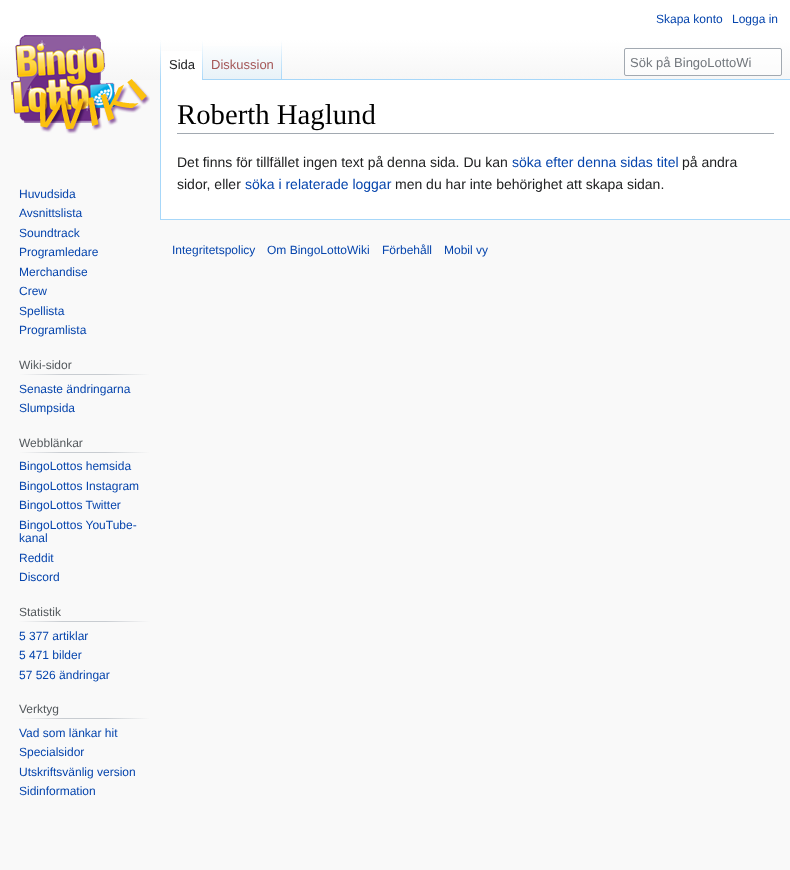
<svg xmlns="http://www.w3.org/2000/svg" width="790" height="870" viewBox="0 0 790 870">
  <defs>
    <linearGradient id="g1" gradientUnits="userSpaceOnUse" x1="395" y1="0" x2="395" y2="80"><stop offset="0.5" stop-color="#ffffff"/><stop offset="1" stop-color="#f6f6f6"/></linearGradient>
    <linearGradient id="g2" gradientUnits="userSpaceOnUse" x1="161" y1="40" x2="161" y2="80"><stop offset="0" stop-color="#a7d7f9" stop-opacity="0"/><stop offset="1" stop-color="#a7d7f9"/></linearGradient>
    <linearGradient id="g3" gradientUnits="userSpaceOnUse" x1="203" y1="40" x2="203" y2="80"><stop offset="0" stop-color="#ffffff"/><stop offset="1" stop-color="#a7d7f9"/></linearGradient>
    <linearGradient id="g4" gradientUnits="userSpaceOnUse" x1="243" y1="80" x2="243" y2="40"><stop offset="0" stop-color="#77c1f6"/><stop offset="0.03" stop-color="#e8f2f8"/><stop offset="1" stop-color="#ffffff"/></linearGradient>
    <linearGradient id="g5" gradientUnits="userSpaceOnUse" x1="282" y1="40" x2="282" y2="80"><stop offset="0" stop-color="#a7d7f9" stop-opacity="0"/><stop offset="1" stop-color="#a7d7f9"/></linearGradient>
    <linearGradient id="g6" gradientUnits="userSpaceOnUse" x1="19" y1="375" x2="150" y2="375"><stop offset="0" stop-color="#f9f9f9"/><stop offset="0.33" stop-color="#c8ccd1"/><stop offset="0.66" stop-color="#c8ccd1"/><stop offset="1" stop-color="#f9f9f9"/></linearGradient>
    <linearGradient id="g7" gradientUnits="userSpaceOnUse" x1="19" y1="453" x2="150" y2="453"><stop offset="0" stop-color="#f9f9f9"/><stop offset="0.33" stop-color="#c8ccd1"/><stop offset="0.66" stop-color="#c8ccd1"/><stop offset="1" stop-color="#f9f9f9"/></linearGradient>
    <linearGradient id="g8" gradientUnits="userSpaceOnUse" x1="19" y1="622" x2="150" y2="622"><stop offset="0" stop-color="#f9f9f9"/><stop offset="0.33" stop-color="#c8ccd1"/><stop offset="0.66" stop-color="#c8ccd1"/><stop offset="1" stop-color="#f9f9f9"/></linearGradient>
    <linearGradient id="g9" gradientUnits="userSpaceOnUse" x1="19" y1="719" x2="150" y2="719"><stop offset="0" stop-color="#f9f9f9"/><stop offset="0.33" stop-color="#c8ccd1"/><stop offset="0.66" stop-color="#c8ccd1"/><stop offset="1" stop-color="#f9f9f9"/></linearGradient>
  </defs>
  <rect width="100%" height="100%" fill="#f9f9f9"/>
  <rect x="0" y="0" width="790" height="80" fill="url(#g1)"/>
  <text x="656" y="23" font-family="Liberation Sans" font-size="12" fill="#0645ad">Skapa konto</text>
  <text x="732" y="23" font-family="Liberation Sans" font-size="12" fill="#0645ad">Logga in</text>
  <rect x="160" y="219" width="630" height="1" fill="#a7d7f9"/>
  <rect x="160" y="79" width="1" height="141" fill="#a7d7f9"/>
  <rect x="160" y="40" width="1" height="40" fill="url(#g2)"/>
  <rect x="161" y="51" width="41" height="29" fill="#ffffff"/>
  <rect x="202" y="40" width="1" height="40" fill="url(#g3)"/>
  <text x="169" y="69" font-family="Liberation Sans" font-size="13" fill="#202122">Sida</text>
  <rect x="203" y="46" width="79" height="34" fill="url(#g4)"/>
  <rect x="281" y="40" width="1" height="40" fill="url(#g5)"/>
  <text x="211" y="69" font-family="Liberation Sans" font-size="13" fill="#a55858">Diskussion</text>
  <rect x="624.5" y="48.5" width="157" height="27" rx="1.5" fill="#ffffff" fill-opacity="0.5" stroke="#a2a9b1"/>
  <text x="630" y="67" font-family="Liberation Sans" font-size="13" fill="#72777d">Sök på BingoLottoWi</text>
  <image x="11" y="35" width="139" height="99" href="img1.png"/>
  <text x="19" y="198" font-family="Liberation Sans" font-size="12" fill="#0645ad">Huvudsida</text>
  <text x="19" y="217" font-family="Liberation Sans" font-size="12" fill="#0645ad">Avsnittslista</text>
  <text x="19" y="237" font-family="Liberation Sans" font-size="12" fill="#0645ad">Soundtrack</text>
  <text x="19" y="256" font-family="Liberation Sans" font-size="12" fill="#0645ad">Programledare</text>
  <text x="19" y="276" font-family="Liberation Sans" font-size="12" fill="#0645ad">Merchandise</text>
  <text x="19" y="295" font-family="Liberation Sans" font-size="12" fill="#0645ad">Crew</text>
  <text x="19" y="315" font-family="Liberation Sans" font-size="12" fill="#0645ad">Spellista</text>
  <text x="19" y="334" font-family="Liberation Sans" font-size="12" fill="#0645ad">Programlista</text>
  <rect x="19" y="374" width="131" height="1" fill="url(#g6)"/>
  <text x="19" y="369" font-family="Liberation Sans" font-size="12" fill="#54595d">Wiki-sidor</text>
  <text x="19" y="393" font-family="Liberation Sans" font-size="12" fill="#0645ad">Senaste ändringarna</text>
  <text x="19" y="412" font-family="Liberation Sans" font-size="12" fill="#0645ad">Slumpsida</text>
  <rect x="19" y="452" width="131" height="1" fill="url(#g7)"/>
  <text x="19" y="447" font-family="Liberation Sans" font-size="12" fill="#54595d">Webblänkar</text>
  <text x="19" y="470" font-family="Liberation Sans" font-size="12" fill="#0645ad">BingoLottos hemsida</text>
  <text x="19" y="490" font-family="Liberation Sans" font-size="12" fill="#0645ad">BingoLottos Instagram</text>
  <text x="19" y="509" font-family="Liberation Sans" font-size="12" fill="#0645ad">BingoLottos Twitter</text>
  <text x="19" y="529" font-family="Liberation Sans" font-size="12" fill="#0645ad">BingoLottos YouTube-</text>
  <text x="19" y="542" font-family="Liberation Sans" font-size="12" fill="#0645ad">kanal</text>
  <text x="19" y="562" font-family="Liberation Sans" font-size="12" fill="#0645ad">Reddit</text>
  <text x="19" y="581" font-family="Liberation Sans" font-size="12" fill="#0645ad">Discord</text>
  <rect x="19" y="621" width="131" height="1" fill="url(#g8)"/>
  <text x="19" y="616" font-family="Liberation Sans" font-size="12" fill="#54595d">Statistik</text>
  <text x="19" y="640" font-family="Liberation Sans" font-size="12" fill="#0645ad">5 377 artiklar</text>
  <text x="19" y="659" font-family="Liberation Sans" font-size="12" fill="#0645ad">5 471 bilder</text>
  <text x="19" y="679" font-family="Liberation Sans" font-size="12" fill="#0645ad">57 526 ändringar</text>
  <rect x="19" y="718" width="131" height="1" fill="url(#g9)"/>
  <text x="19" y="713" font-family="Liberation Sans" font-size="12" fill="#54595d">Verktyg</text>
  <text x="19" y="737" font-family="Liberation Sans" font-size="12" fill="#0645ad">Vad som länkar hit</text>
  <text x="19" y="756" font-family="Liberation Sans" font-size="12" fill="#0645ad">Specialsidor</text>
  <text x="19" y="776" font-family="Liberation Sans" font-size="12" fill="#0645ad">Utskriftsvänlig version</text>
  <text x="19" y="795" font-family="Liberation Sans" font-size="12" fill="#0645ad">Sidinformation</text>
  <rect x="161" y="80" width="629" height="139" fill="#ffffff"/>
  <rect x="282" y="79" width="508" height="1" fill="#a7d7f9"/>
  <rect x="177" y="133" width="597" height="1" fill="#a2a9b1"/>
  <text x="177" y="124" font-family="Liberation Serif" font-size="28.75" fill="#000000">Roberth Haglund</text>
  <text x="177" y="167" font-family="Liberation Sans" font-size="14" fill="#202122">Det finns för tillfället ingen text på denna sida. Du kan</text>
  <text x="512" y="167" font-family="Liberation Sans" font-size="14" fill="#0645ad">söka efter denna sidas titel</text>
  <text x="682" y="167" font-family="Liberation Sans" font-size="14" fill="#202122">på andra</text>
  <text x="177" y="189" font-family="Liberation Sans" font-size="14" fill="#202122">sidor, eller</text>
  <text x="245" y="189" font-family="Liberation Sans" font-size="14" fill="#0645ad">söka i relaterade loggar</text>
  <text x="395" y="189" font-family="Liberation Sans" font-size="14" fill="#202122">men du har inte behörighet att skapa sidan.</text>
  <text x="172" y="254" font-family="Liberation Sans" font-size="12" fill="#0645ad">Integritetspolicy</text>
  <text x="267" y="254" font-family="Liberation Sans" font-size="12" fill="#0645ad">Om BingoLottoWiki</text>
  <text x="382" y="254" font-family="Liberation Sans" font-size="12" fill="#0645ad">Förbehåll</text>
  <text x="444" y="254" font-family="Liberation Sans" font-size="12" fill="#0645ad">Mobil vy</text>
</svg>
